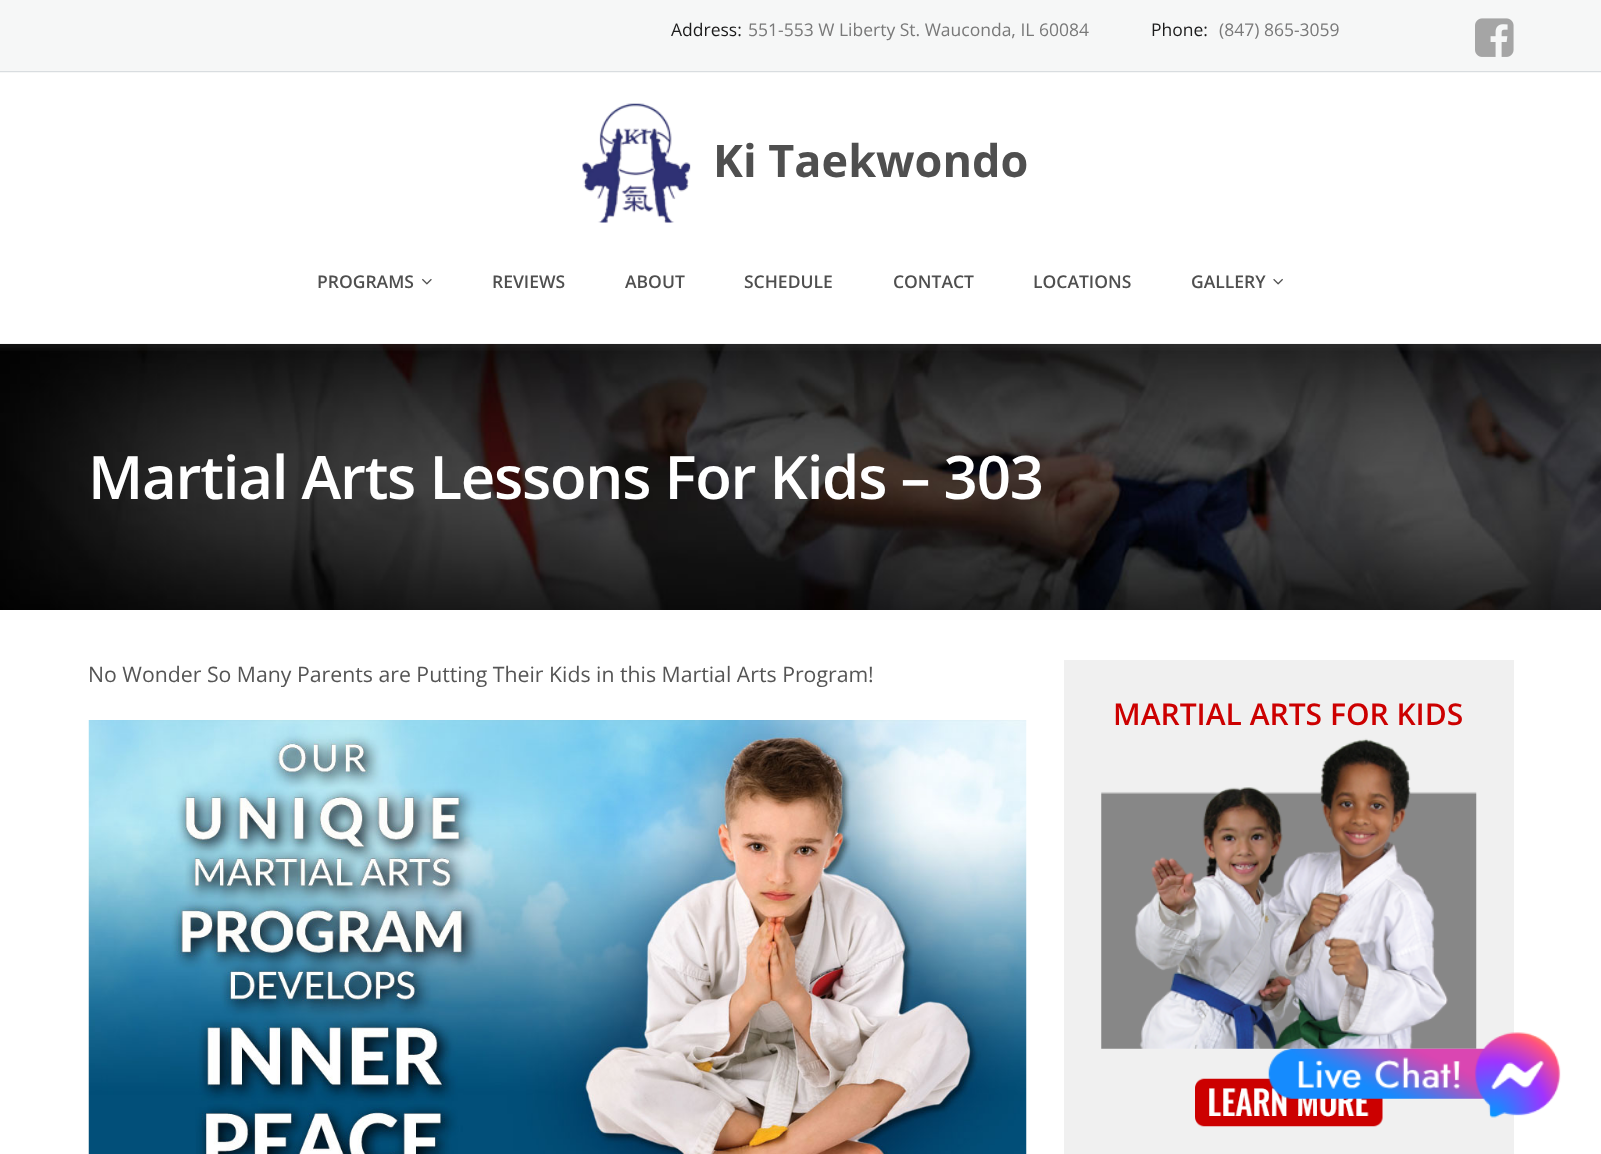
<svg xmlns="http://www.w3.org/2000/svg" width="1601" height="1154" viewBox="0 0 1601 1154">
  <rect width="100%" height="100%" fill="#ffffff"/>
  <rect x="0" y="0" width="1601" height="73" fill="#f6f7f7"/>
  <rect x="0" y="71" width="1601" height="1" fill="#d9dde0"/>
  <text x="671" y="36" font-family="Open Sans" font-size="17.5" fill="#1b1b1b">Address:</text>
  <text x="748" y="36" font-family="Open Sans" font-size="17.5" fill="#797979">551-553 W Liberty St. Wauconda, IL 60084</text>
  <text x="1151" y="36" font-family="Open Sans" font-size="17.5" fill="#1b1b1b">Phone:</text>
  <text x="1219" y="36" font-family="Open Sans" font-size="17.5" fill="#797979">(847) 865-3059</text>
  <image x="1475" y="18" width="39" height="39" href="img1.png"/>
  <image x="582" y="103" width="109" height="120" href="img2.png"/>
  <text x="713" y="177" font-family="Open Sans" font-size="45" font-weight="bold" fill="#4f4f4f">Ki Taekwondo</text>
  <text x="317" y="288" font-family="Open Sans" font-size="17.5" font-weight="600" fill="#4f4f4f">PROGRAMS</text>
  <image x="422" y="278" width="10" height="7" href="img3.png"/>
  <text x="492" y="288" font-family="Open Sans" font-size="17.5" font-weight="600" fill="#4f4f4f">REVIEWS</text>
  <text x="625" y="288" font-family="Open Sans" font-size="17.5" font-weight="600" fill="#4f4f4f">ABOUT</text>
  <text x="744" y="288" font-family="Open Sans" font-size="17.5" font-weight="600" fill="#4f4f4f">SCHEDULE</text>
  <text x="893" y="288" font-family="Open Sans" font-size="17.5" font-weight="600" fill="#4f4f4f">CONTACT</text>
  <text x="1033" y="288" font-family="Open Sans" font-size="17.5" font-weight="600" fill="#4f4f4f">LOCATIONS</text>
  <text x="1191" y="288" font-family="Open Sans" font-size="17.5" font-weight="600" fill="#4f4f4f">GALLERY</text>
  <image x="1273" y="278" width="10" height="7" href="img4.png"/>
  <image x="0" y="344" width="1601" height="266" href="img6.png"/>
  <image x="0" y="343" width="1601" height="8" href="img5.png"/>
  <text x="88" y="499" font-family="Open Sans" font-size="60" font-weight="600" letter-spacing="-1.25" fill="#ffffff">Martial Arts Lessons For Kids – 303</text>
  <text x="88" y="682" font-family="Open Sans" font-size="21.25" fill="#555555">No Wonder So Many Parents are Putting Their Kids in this Martial Arts Program!</text>
  <image x="88" y="720" width="939" height="434" href="img7.png"/>
  <rect x="1064" y="660" width="450" height="494" fill="#f0f0f0"/>
  <text x="1113" y="725" font-family="Open Sans" font-size="30" font-weight="600" fill="#cc0000">MARTIAL ARTS FOR KIDS</text>
  <image x="1101" y="738" width="376" height="311" href="img8.png"/>
  <image x="1195" y="1078" width="188" height="49" href="img9.png"/>
  <image x="1268" y="1032" width="293" height="86" href="img10.png"/>
</svg>
